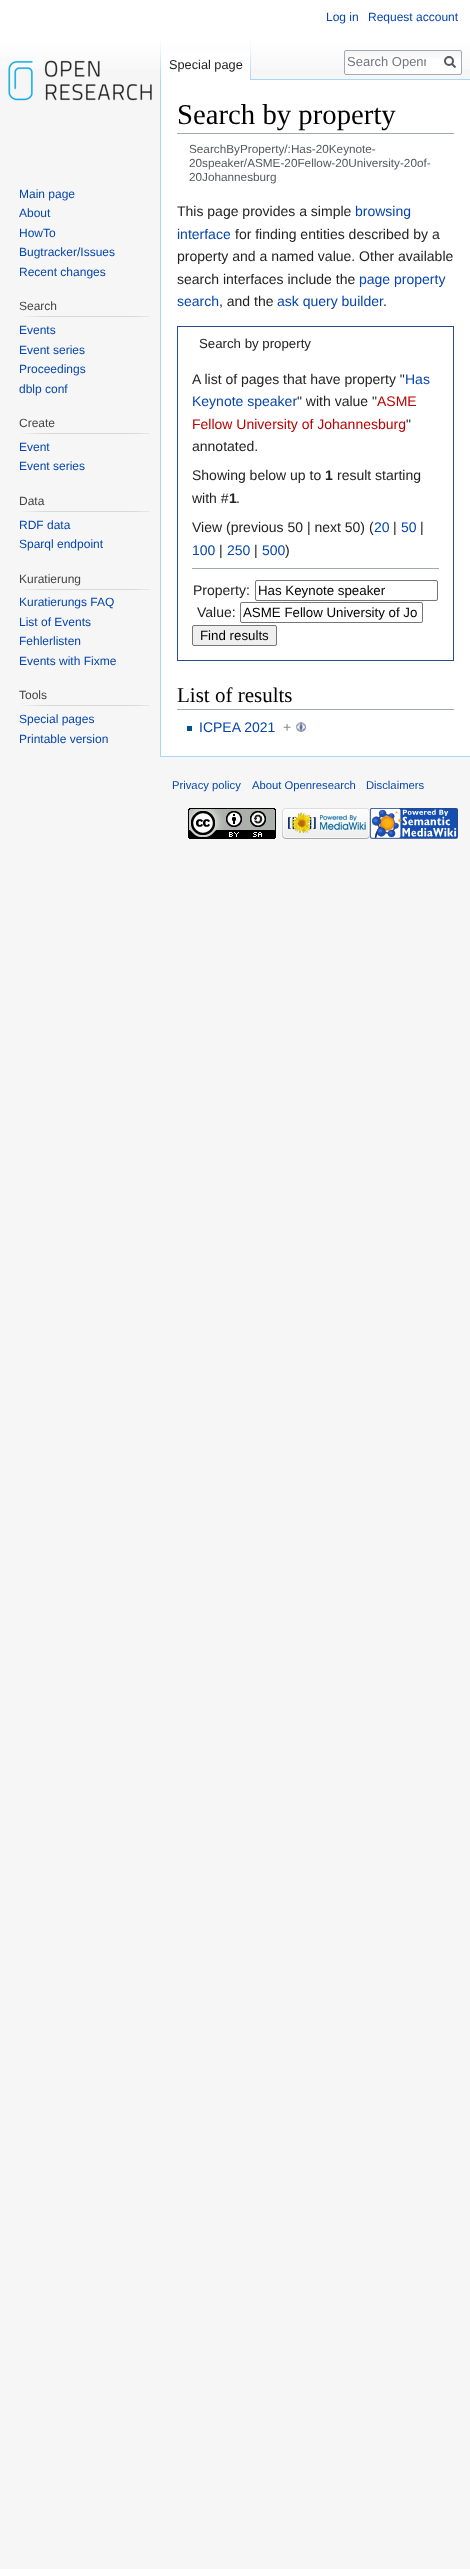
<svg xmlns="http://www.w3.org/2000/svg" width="470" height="2569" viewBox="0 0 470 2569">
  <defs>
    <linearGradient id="g1" gradientUnits="userSpaceOnUse" x1="235" y1="0" x2="235" y2="80"><stop offset="0.5" stop-color="#ffffff"/><stop offset="1" stop-color="#f6f6f6"/></linearGradient>
    <clipPath id="clip1"><rect x="347" y="54" width="79" height="15"/></clipPath>
  </defs>
  <rect width="100%" height="100%" fill="#f6f6f6"/>
  <rect x="0" y="0" width="470" height="69" fill="url(#g1)"/>
  <text x="326" y="21" font-family="Liberation Sans" font-size="12" fill="#0645ad">Log in</text>
  <text x="368" y="21" font-family="Liberation Sans" font-size="12" fill="#0645ad">Request account</text>
  <image x="160" y="40" width="1" height="39" href="img1.png"/>
  <rect x="161" y="51" width="89" height="29" fill="#ffffff"/>
  <image x="250" y="40" width="1" height="40" href="img2.png"/>
  <text x="169" y="69" font-family="Liberation Sans" font-size="12.75" fill="#222222">Special page</text>
  <rect x="344" y="50" width="118" height="25" rx="2" fill="#ffffff"/>
  <image x="344" y="51" width="118" height="8" href="img3.png"/>
  <rect x="344.5" y="50.5" width="117" height="24" rx="1.5" fill="none" stroke="#a2a9b1"/>
  <g clip-path="url(#clip1)">
    <text x="347" y="66" font-family="Liberation Sans" font-size="13" fill="#72777d">Search Openr</text>
  </g>
  <path d="M455.5 67.5L451.5 63.5" fill="none" stroke="#54595d" stroke-width="2"/>
  <circle cx="449" cy="61" r="4" fill="none" stroke="#54595d" stroke-width="2"/>
  <image x="8" y="60" width="144" height="41" href="img4.png"/>
  <text x="19" y="198" font-family="Liberation Sans" font-size="12" fill="#0645ad">Main page</text>
  <text x="19" y="217" font-family="Liberation Sans" font-size="12" fill="#0645ad">About</text>
  <text x="19" y="237" font-family="Liberation Sans" font-size="12" fill="#0645ad">HowTo</text>
  <text x="19" y="256" font-family="Liberation Sans" font-size="12" fill="#0645ad">Bugtracker/Issues</text>
  <text x="19" y="276" font-family="Liberation Sans" font-size="12" fill="#0645ad">Recent changes</text>
  <text x="19" y="310" font-family="Liberation Sans" font-size="12" fill="#444444">Search</text>
  <image x="22" y="316" width="128" height="1" href="img5.png"/>
  <text x="19" y="334" font-family="Liberation Sans" font-size="12" fill="#0645ad">Events</text>
  <text x="19" y="354" font-family="Liberation Sans" font-size="12" fill="#0645ad">Event series</text>
  <text x="19" y="373" font-family="Liberation Sans" font-size="12" fill="#0645ad">Proceedings</text>
  <text x="19" y="393" font-family="Liberation Sans" font-size="12" fill="#0645ad">dblp conf</text>
  <text x="19" y="427" font-family="Liberation Sans" font-size="12" fill="#444444">Create</text>
  <image x="22" y="433" width="128" height="1" href="img5.png"/>
  <text x="19" y="451" font-family="Liberation Sans" font-size="12" fill="#0645ad">Event</text>
  <text x="19" y="470" font-family="Liberation Sans" font-size="12" fill="#0645ad">Event series</text>
  <text x="19" y="505" font-family="Liberation Sans" font-size="12" fill="#444444">Data</text>
  <image x="22" y="511" width="128" height="1" href="img5.png"/>
  <text x="19" y="529" font-family="Liberation Sans" font-size="12" fill="#0645ad">RDF data</text>
  <text x="19" y="548" font-family="Liberation Sans" font-size="12" fill="#0645ad">Sparql endpoint</text>
  <text x="19" y="583" font-family="Liberation Sans" font-size="12" fill="#444444">Kuratierung</text>
  <image x="22" y="589" width="128" height="1" href="img5.png"/>
  <text x="19" y="606" font-family="Liberation Sans" font-size="12" fill="#0645ad">Kuratierungs FAQ</text>
  <text x="19" y="626" font-family="Liberation Sans" font-size="12" fill="#0645ad">List of Events</text>
  <text x="19" y="645" font-family="Liberation Sans" font-size="12" fill="#0645ad">Fehlerlisten</text>
  <text x="19" y="665" font-family="Liberation Sans" font-size="12" fill="#0645ad">Events with Fixme</text>
  <text x="19" y="699" font-family="Liberation Sans" font-size="12" fill="#444444">Tools</text>
  <image x="22" y="705" width="128" height="1" href="img5.png"/>
  <text x="19" y="723" font-family="Liberation Sans" font-size="12" fill="#0645ad">Special pages</text>
  <text x="19" y="743" font-family="Liberation Sans" font-size="12" fill="#0645ad">Printable version</text>
  <rect x="161" y="80" width="309" height="676" fill="#ffffff"/>
  <rect x="251" y="79" width="219" height="1" fill="#a7d7f9"/>
  <rect x="160" y="756" width="310" height="1" fill="#a7d7f9"/>
  <rect x="160" y="79" width="1" height="678" fill="#a7d7f9"/>
  <rect x="177" y="133" width="277" height="1" fill="#a2a9b1"/>
  <text x="177" y="124" font-family="Liberation Serif" font-size="28.75" fill="#000000">Search by property</text>
  <text x="189" y="153" font-family="Liberation Sans" font-size="11.75" fill="#54595d">SearchByProperty/:Has-20Keynote-</text>
  <text x="189" y="167" font-family="Liberation Sans" font-size="11.75" fill="#54595d">20speaker/ASME-20Fellow-20University-20of-</text>
  <text x="189" y="181" font-family="Liberation Sans" font-size="11.75" fill="#54595d">20Johannesburg</text>
  <text x="177" y="216" font-family="Liberation Sans" font-size="14" fill="#222222">This page provides a simple</text>
  <text x="355" y="216" font-family="Liberation Sans" font-size="14" fill="#0645ad">browsing</text>
  <text x="177" y="239" font-family="Liberation Sans" font-size="14" fill="#0645ad">interface</text>
  <text x="235" y="239" font-family="Liberation Sans" font-size="14" fill="#222222">for finding entities described by a</text>
  <text x="177" y="261" font-family="Liberation Sans" font-size="14" fill="#222222">property and a named value. Other available</text>
  <text x="177" y="284" font-family="Liberation Sans" font-size="14" fill="#222222">search interfaces include the</text>
  <text x="359" y="284" font-family="Liberation Sans" font-size="14" fill="#0645ad">page property</text>
  <text x="177" y="306" font-family="Liberation Sans" font-size="14" fill="#0645ad">search</text>
  <text x="219" y="306" font-family="Liberation Sans" font-size="14" fill="#222222">, and the</text>
  <text x="277" y="306" font-family="Liberation Sans" font-size="14" fill="#0645ad">ask query builder</text>
  <text x="383" y="306" font-family="Liberation Sans" font-size="14" fill="#222222">.</text>
  <rect x="177.5" y="326.5" width="276" height="334" fill="none" stroke="#2a4b8d"/>
  <text x="199" y="348" font-family="Liberation Sans" font-size="13.25" fill="#222222">Search by property</text>
  <text x="192" y="384" font-family="Liberation Sans" font-size="14" fill="#222222">A list of pages that have property "</text>
  <text x="405" y="384" font-family="Liberation Sans" font-size="14" fill="#0645ad">Has</text>
  <text x="192" y="406" font-family="Liberation Sans" font-size="14" fill="#0645ad">Keynote speaker</text>
  <text x="297" y="406" font-family="Liberation Sans" font-size="14" fill="#222222">" with value "</text>
  <text x="377" y="406" font-family="Liberation Sans" font-size="14" fill="#ba0000">ASME</text>
  <text x="192" y="429" font-family="Liberation Sans" font-size="14" fill="#ba0000">Fellow University of Johannesburg</text>
  <text x="406" y="429" font-family="Liberation Sans" font-size="14" fill="#222222">"</text>
  <text x="192" y="451" font-family="Liberation Sans" font-size="14" fill="#222222">annotated.</text>
  <text x="192" y="480" font-family="Liberation Sans" font-size="14" fill="#222222">Showing below up to</text>
  <text x="325" y="480" font-family="Liberation Sans" font-size="14" font-weight="bold" fill="#222222">1</text>
  <text x="337" y="480" font-family="Liberation Sans" font-size="14" fill="#222222">result starting</text>
  <text x="192" y="503" font-family="Liberation Sans" font-size="14" fill="#222222">with #</text>
  <text x="229" y="503" font-family="Liberation Sans" font-size="14" font-weight="bold" fill="#222222">1</text>
  <text x="236" y="503" font-family="Liberation Sans" font-size="14" fill="#222222">.</text>
  <text x="192" y="532" font-family="Liberation Sans" font-size="14" fill="#222222">View (previous 50 | next 50) (</text>
  <text x="374" y="532" font-family="Liberation Sans" font-size="14" fill="#0645ad">20</text>
  <text x="393" y="532" font-family="Liberation Sans" font-size="14" fill="#222222">|</text>
  <text x="401" y="532" font-family="Liberation Sans" font-size="14" fill="#0645ad">50</text>
  <text x="420" y="532" font-family="Liberation Sans" font-size="14" fill="#222222">|</text>
  <text x="192" y="555" font-family="Liberation Sans" font-size="14" fill="#0645ad">100</text>
  <text x="219" y="555" font-family="Liberation Sans" font-size="14" fill="#222222">|</text>
  <text x="227" y="555" font-family="Liberation Sans" font-size="14" fill="#0645ad">250</text>
  <text x="254" y="555" font-family="Liberation Sans" font-size="14" fill="#222222">|</text>
  <text x="262" y="555" font-family="Liberation Sans" font-size="14" fill="#0645ad">500</text>
  <text x="285" y="555" font-family="Liberation Sans" font-size="14" fill="#222222">)</text>
  <rect x="192" y="568" width="247" height="1" fill="#a2a9b1"/>
  <text x="193" y="595" font-family="Liberation Sans" font-size="14" fill="#222222">Property:</text>
  <rect x="255.5" y="580.5" width="182" height="20" rx="1.5" fill="none" stroke="#767676"/>
  <text x="258" y="595" font-family="Liberation Sans" font-size="13.3" fill="#000000">Has Keynote speaker</text>
  <text x="197" y="617" font-family="Liberation Sans" font-size="14" fill="#222222">Value:</text>
  <rect x="240.5" y="602.5" width="182" height="20" rx="1.5" fill="none" stroke="#767676"/>
  <text x="243" y="617" font-family="Liberation Sans" font-size="13.3" fill="#000000">ASME Fellow University of Jo</text>
  <rect x="192.5" y="625.5" width="84" height="20" rx="1.5" fill="#efefef" stroke="#767676"/>
  <text x="200" y="640" font-family="Liberation Sans" font-size="13.3" fill="#000000">Find results</text>
  <rect x="177" y="709" width="277" height="1" fill="#a2a9b1"/>
  <text x="177" y="702" font-family="Liberation Serif" font-size="21" fill="#000000">List of results</text>
  <rect x="187" y="726" width="5" height="5" fill="#00528c"/>
  <text x="199" y="732" font-family="Liberation Sans" font-size="14" fill="#0645ad">ICPEA 2021</text>
  <text x="283" y="732" font-family="Liberation Sans" font-size="14" fill="#888888">+</text>
  <image x="296" y="722" width="10" height="10" href="img6.png"/>
  <text x="172" y="789" font-family="Liberation Sans" font-size="11.25" fill="#0645ad">Privacy policy</text>
  <text x="252" y="789" font-family="Liberation Sans" font-size="11.25" fill="#0645ad">About Openresearch</text>
  <text x="366" y="789" font-family="Liberation Sans" font-size="11.25" fill="#0645ad">Disclaimers</text>
  <image x="188" y="808" width="88" height="31" href="img7.png"/>
  <image x="282" y="808" width="88" height="31" href="img8.png"/>
  <image x="370" y="808" width="88" height="31" href="img9.png"/>
</svg>
